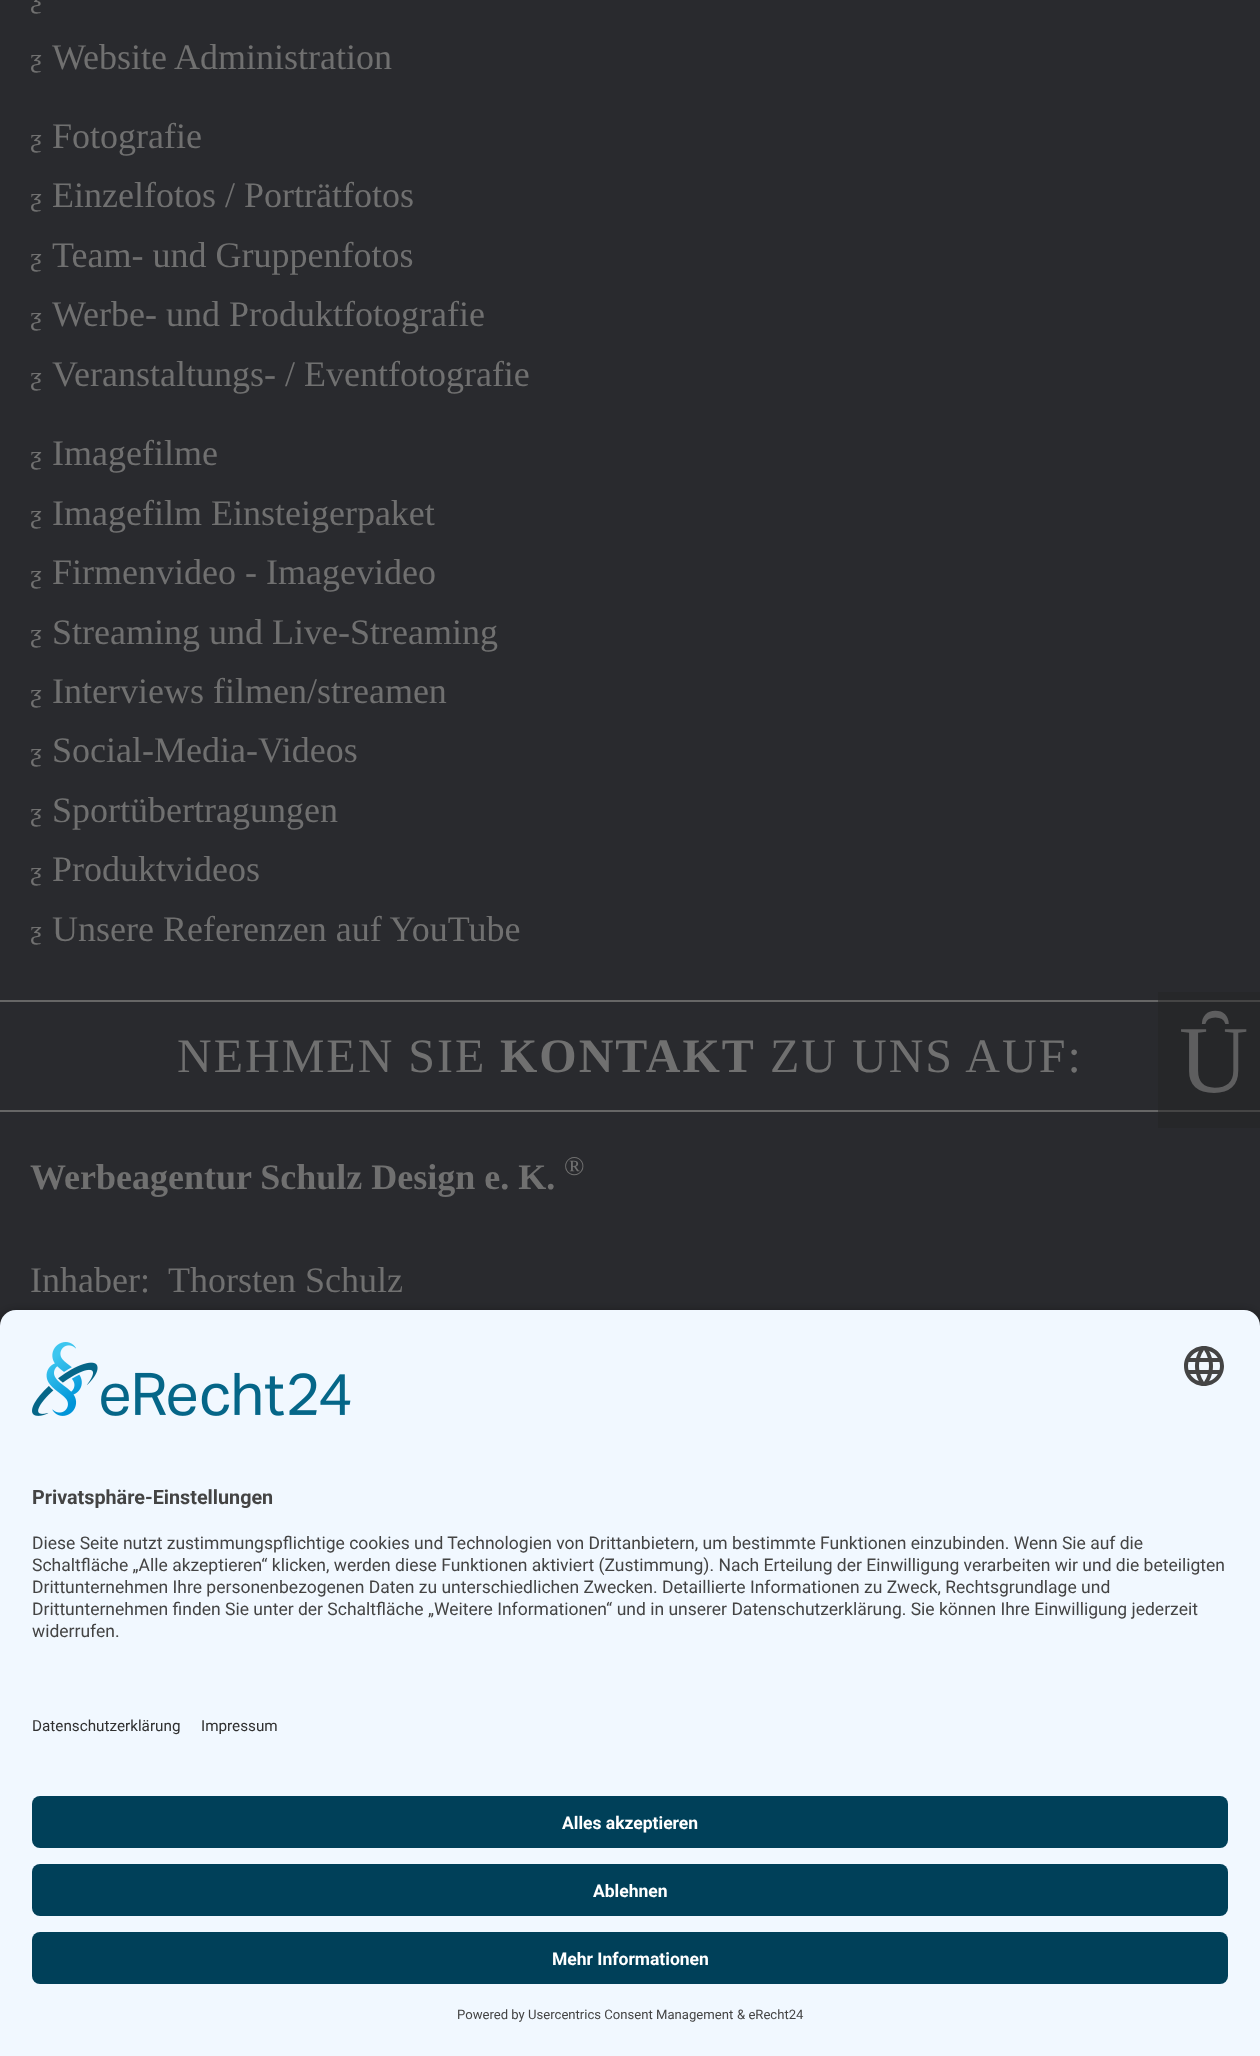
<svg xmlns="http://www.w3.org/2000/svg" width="1260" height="2056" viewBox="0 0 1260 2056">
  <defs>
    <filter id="blur1" x="-50%" y="-200%" width="200%" height="500%"><feGaussianBlur stdDeviation="7"/></filter>
  </defs>
  <rect width="100%" height="100%" fill="#292a2e"/>
  <rect x="1158" y="992" width="102" height="136" fill="#262729"/>
  <text x="30" y="8" font-family="Liberation Serif" font-size="26" fill="#707070">ƺ</text>
  <text x="30" y="67" font-family="Liberation Serif" font-size="26" fill="#707070">ƺ</text>
  <text x="52" y="69" font-family="Liberation Serif" font-size="36" fill="#707070">Website Administration</text>
  <text x="30" y="147" font-family="Liberation Serif" font-size="26" fill="#707070">ƺ</text>
  <text x="52" y="148" font-family="Liberation Serif" font-size="36" fill="#707070">Fotografie</text>
  <text x="30" y="206" font-family="Liberation Serif" font-size="26" fill="#707070">ƺ</text>
  <text x="52" y="207" font-family="Liberation Serif" font-size="36" fill="#707070">Einzelfotos / Porträtfotos</text>
  <text x="30" y="266" font-family="Liberation Serif" font-size="26" fill="#707070">ƺ</text>
  <text x="52" y="267" font-family="Liberation Serif" font-size="36" fill="#707070">Team- und Gruppenfotos</text>
  <text x="30" y="325" font-family="Liberation Serif" font-size="26" fill="#707070">ƺ</text>
  <text x="52" y="326" font-family="Liberation Serif" font-size="36" fill="#707070">Werbe- und Produktfotografie</text>
  <text x="30" y="385" font-family="Liberation Serif" font-size="26" fill="#707070">ƺ</text>
  <text x="52" y="386" font-family="Liberation Serif" font-size="36" fill="#707070">Veranstaltungs- / Eventfotografie</text>
  <text x="30" y="464" font-family="Liberation Serif" font-size="26" fill="#707070">ƺ</text>
  <text x="52" y="465" font-family="Liberation Serif" font-size="36" fill="#707070">Imagefilme</text>
  <text x="30" y="523" font-family="Liberation Serif" font-size="26" fill="#707070">ƺ</text>
  <text x="52" y="525" font-family="Liberation Serif" font-size="36" fill="#707070">Imagefilm Einsteigerpaket</text>
  <text x="30" y="583" font-family="Liberation Serif" font-size="26" fill="#707070">ƺ</text>
  <text x="52" y="584" font-family="Liberation Serif" font-size="36" fill="#707070">Firmenvideo - Imagevideo</text>
  <text x="30" y="642" font-family="Liberation Serif" font-size="26" fill="#707070">ƺ</text>
  <text x="52" y="644" font-family="Liberation Serif" font-size="36" fill="#707070">Streaming und Live-Streaming</text>
  <text x="30" y="702" font-family="Liberation Serif" font-size="26" fill="#707070">ƺ</text>
  <text x="52" y="703" font-family="Liberation Serif" font-size="36" fill="#707070">Interviews filmen/streamen</text>
  <text x="30" y="761" font-family="Liberation Serif" font-size="26" fill="#707070">ƺ</text>
  <text x="52" y="762" font-family="Liberation Serif" font-size="36" fill="#707070">Social-Media-Videos</text>
  <text x="30" y="821" font-family="Liberation Serif" font-size="26" fill="#707070">ƺ</text>
  <text x="52" y="822" font-family="Liberation Serif" font-size="36" fill="#707070">Sportübertragungen</text>
  <text x="30" y="880" font-family="Liberation Serif" font-size="26" fill="#707070">ƺ</text>
  <text x="52" y="881" font-family="Liberation Serif" font-size="36" fill="#707070">Produktvideos</text>
  <text x="30" y="939" font-family="Liberation Serif" font-size="26" fill="#707070">ƺ</text>
  <text x="52" y="941" font-family="Liberation Serif" font-size="36" fill="#707070">Unsere Referenzen auf YouTube</text>
  <rect x="0" y="1000" width="1158" height="2" fill="#666666"/>
  <rect x="1158" y="1000" width="102" height="2" fill="#454545"/>
  <rect x="0" y="1110" width="1158" height="2" fill="#666666"/>
  <rect x="1158" y="1110" width="102" height="2" fill="#454545"/>
  <text x="177" y="1072" font-family="Liberation Serif" font-size="48" letter-spacing="2" fill="#707070">NEHMEN SIE</text>
  <text x="500" y="1072" font-family="Liberation Serif" font-size="48" font-weight="bold" letter-spacing="2" fill="#707070">KONTAKT</text>
  <text x="770" y="1072" font-family="Liberation Serif" font-size="48" letter-spacing="2" fill="#707070">ZU UNS AUF:</text>
  <text x="30" y="1189" font-family="Liberation Serif" font-size="36" font-weight="bold" fill="#707070">Werbeagentur Schulz Design e. K.</text>
  <text x="564" y="1175" font-family="Liberation Serif" font-size="27" fill="#707070">®</text>
  <text x="30" y="1292" font-family="Liberation Serif" font-size="36" fill="#707070">Inhaber:</text>
  <text x="168" y="1292" font-family="Liberation Serif" font-size="36" fill="#707070">Thorsten Schulz</text>
  <text x="1179" y="1092" font-family="Liberation Serif" font-size="96" fill="#5e5e5f">Ȗ</text>
  <rect x="0" y="1316" width="1260" height="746" rx="16" fill="#000000" fill-opacity="0.8" filter="url(#blur1)"/>
  <path d="M16 1310H1244C1253 1310 1260 1317 1260 1326V1682H0V1326C0 1317 7 1310 16 1310Z" fill="#f1f8ff"/>
  <image x="32" y="1342" width="319" height="74" href="img1.png"/>
  <image x="1184" y="1346" width="40" height="40" href="img2.png"/>
  <text x="32" y="1504" font-family="Roboto" font-size="19.75" font-weight="bold" fill="#444444">Privatsphäre-Einstellungen</text>
  <text x="32" y="1549" font-family="Roboto" font-size="17.5" fill="#444444">Diese Seite nutzt zustimmungspflichtige cookies und Technologien von Drittanbietern, um bestimmte Funktionen einzubinden. Wenn Sie auf die</text>
  <text x="32" y="1571" font-family="Roboto" font-size="17.5" fill="#444444">Schaltfläche „Alle akzeptieren“ klicken, werden diese Funktionen aktiviert (Zustimmung). Nach Erteilung der Einwilligung verarbeiten wir und die beteiligten</text>
  <text x="32" y="1593" font-family="Roboto" font-size="17.5" fill="#444444">Drittunternehmen Ihre personenbezogenen Daten zu unterschiedlichen Zwecken. Detaillierte Informationen zu Zweck, Rechtsgrundlage und</text>
  <text x="32" y="1615" font-family="Roboto" font-size="17.5" fill="#444444">Drittunternehmen finden Sie unter der Schaltfläche „Weitere Informationen“ und in unserer Datenschutzerklärung. Sie können Ihre Einwilligung jederzeit</text>
  <text x="32" y="1637" font-family="Roboto" font-size="17.5" fill="#444444">widerrufen.</text>
  <rect x="0" y="1682" width="1260" height="374" fill="#f1f8ff"/>
  <text x="32" y="1731" font-family="Roboto" font-size="15.25" fill="#303030">Datenschutzerklärung</text>
  <text x="201" y="1731" font-family="Roboto" font-size="15.25" fill="#303030">Impressum</text>
  <rect x="32" y="1796" width="1196" height="52" rx="8" fill="#004059"/>
  <text x="562" y="1829" font-family="Roboto" font-size="17.5" font-weight="bold" fill="#ffffff">Alles akzeptieren</text>
  <rect x="32" y="1864" width="1196" height="52" rx="8" fill="#004059"/>
  <text x="593" y="1897" font-family="Roboto" font-size="17.5" font-weight="bold" fill="#ffffff">Ablehnen</text>
  <rect x="32" y="1932" width="1196" height="52" rx="8" fill="#004059"/>
  <text x="552" y="1965" font-family="Roboto" font-size="17.5" font-weight="bold" fill="#ffffff">Mehr Informationen</text>
  <text x="457" y="2019" font-family="Roboto" font-size="13.1" fill="#444444">Powered by Usercentrics Consent Management</text>
  <text x="737" y="2019" font-family="Roboto" font-size="13.1" fill="#444444">&amp; eRecht24</text>
</svg>
